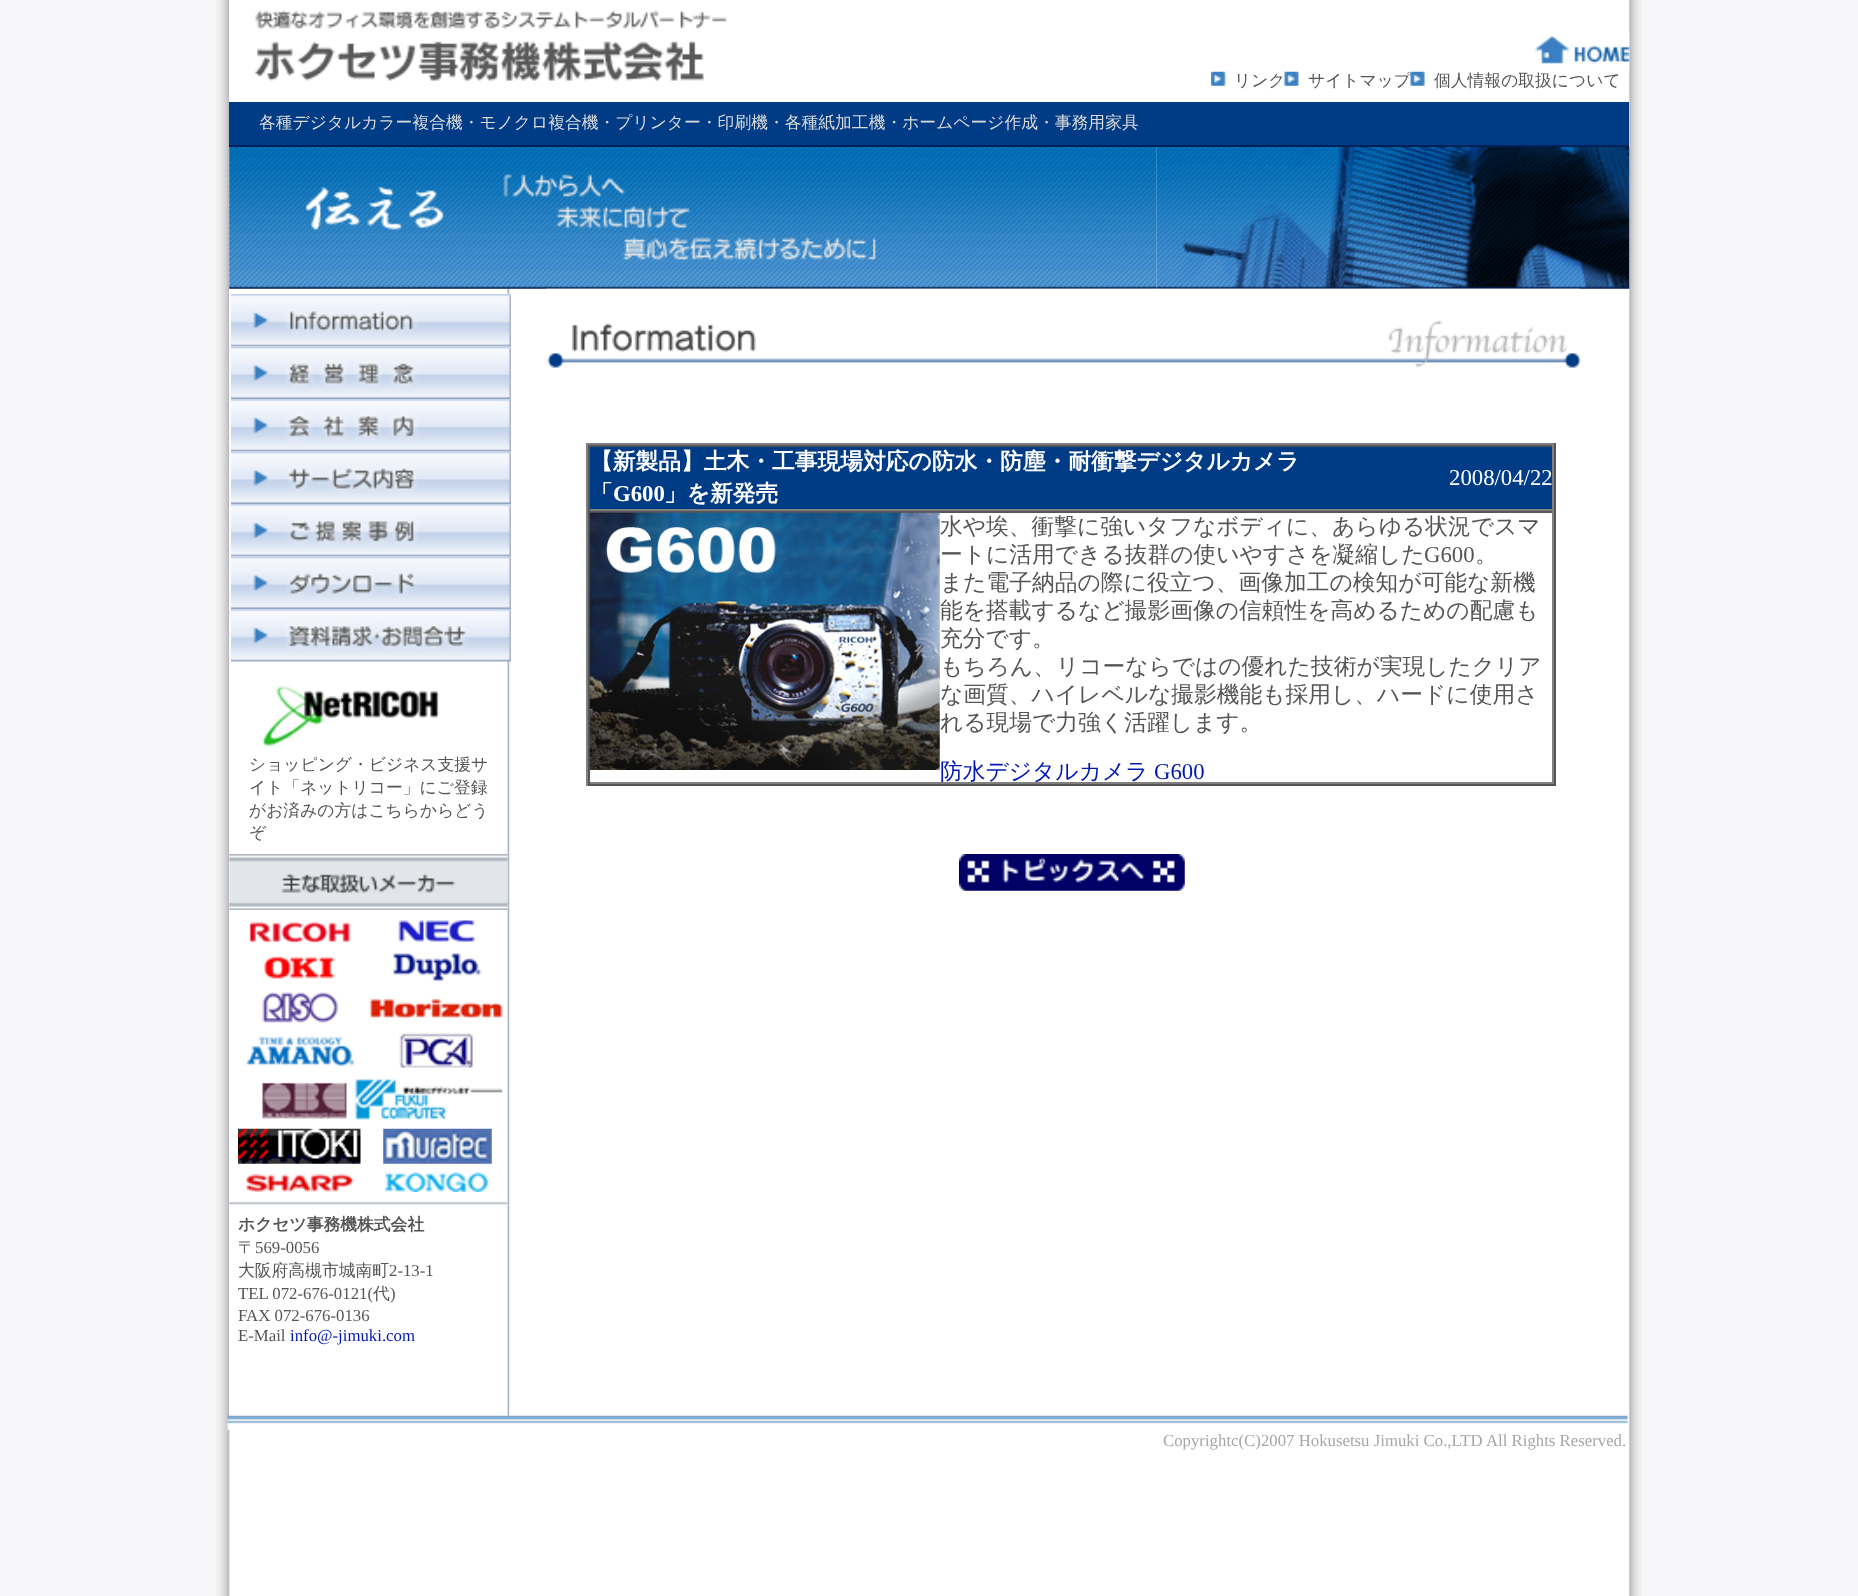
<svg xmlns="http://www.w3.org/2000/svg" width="1858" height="1596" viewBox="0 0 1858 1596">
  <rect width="100%" height="100%" fill="#f6f6f8"/>
  <image x="216" y="0" width="1426" height="1596" href="img1.png"/>
  <image x="229" y="0" width="498" height="35" href="img2.png"/>
  <image x="229" y="35" width="475" height="67" href="img3.png"/>
  <image x="1534" y="31" width="96" height="39" href="img4.png"/>
  <image x="1211" y="71" width="15" height="15" href="img5.png"/>
  <text x="1234" y="86" font-family="WenQuanYi Zen Hei" font-size="16.8" font-weight="500" fill="#555555">リンク</text>
  <image x="1284" y="71" width="15" height="15" href="img6.png"/>
  <text x="1308" y="86" font-family="WenQuanYi Zen Hei" font-size="16.8" font-weight="500" fill="#555555">サイトマップ</text>
  <image x="1410" y="71" width="15" height="15" href="img7.png"/>
  <text x="1434" y="86" font-family="WenQuanYi Zen Hei" font-size="16.8" font-weight="500" fill="#555555">個人情報の取扱について</text>
  <rect x="229" y="102" width="1400" height="43" fill="#003b85"/>
  <text x="259" y="128" font-family="WenQuanYi Zen Hei" font-size="16.8" font-weight="500" fill="#dadada">各種デジタルカラー複合機・モノクロ複合機・プリンター・印刷機・各種紙加工機・ホームページ作成・事務用家具</text>
  <rect x="229" y="145" width="1400" height="2" fill="#002157"/>
  <image x="229" y="288" width="281" height="1128" href="img13.png"/>
  <image x="229" y="147" width="928" height="142" href="img8.png"/>
  <image x="1156" y="147" width="474" height="142" href="img9.png"/>
  <image x="546" y="288" width="1035" height="80" href="img10.png"/>
  <rect x="586" y="443" width="970" height="2" fill="#808080"/>
  <rect x="1554" y="443" width="2" height="343" fill="#555555"/>
  <rect x="586" y="784" width="970" height="2" fill="#555555"/>
  <rect x="586" y="443" width="2" height="343" fill="#808080"/>
  <rect x="590" y="447" width="962" height="62" fill="#003b85"/>
  <rect x="588" y="445" width="966" height="2" fill="#555555"/>
  <rect x="1552" y="445" width="2" height="66" fill="#808080"/>
  <rect x="588" y="509" width="966" height="2" fill="#808080"/>
  <rect x="588" y="445" width="2" height="66" fill="#555555"/>
  <text x="590" y="469" font-family="WenQuanYi Zen Hei" font-size="22.75" font-weight="bold" fill="#ffffff">【新製品】土木・工事現場対応の防水・防塵・耐衝撃デジタルカメラ</text>
  <text x="590" y="501" font-family="WenQuanYi Zen Hei" font-size="22.75" font-weight="bold" fill="#ffffff">「</text>
  <text x="613" y="501" font-family="Liberation Serif" font-size="22.75" font-weight="bold" fill="#ffffff">G600</text>
  <text x="664" y="501" font-family="WenQuanYi Zen Hei" font-size="22.75" font-weight="bold" fill="#ffffff">」を新発売</text>
  <text x="1449" y="485" font-family="Liberation Serif" font-size="22.75" fill="#ffffff">2008/04/22</text>
  <rect x="588" y="511" width="966" height="2" fill="#555555"/>
  <rect x="1552" y="511" width="2" height="273" fill="#808080"/>
  <rect x="588" y="782" width="966" height="2" fill="#808080"/>
  <rect x="588" y="511" width="2" height="273" fill="#555555"/>
  <image x="589" y="512" width="351" height="258" href="img11.png"/>
  <text x="940" y="534" font-family="WenQuanYi Zen Hei" font-size="22.75" font-weight="500" fill="#555555">水や埃、衝撃に強いタフなボディに、あらゆる状況でスマ</text>
  <text x="940" y="562" font-family="WenQuanYi Zen Hei" font-size="22.75" font-weight="500" fill="#555555">ートに活用できる抜群の使いやすさを凝縮した</text>
  <text x="1424" y="562" font-family="Liberation Serif" font-size="22.75" fill="#555555">G600</text>
  <text x="1475" y="562" font-family="WenQuanYi Zen Hei" font-size="22.75" font-weight="500" fill="#555555">。</text>
  <text x="940" y="590" font-family="WenQuanYi Zen Hei" font-size="22.75" font-weight="500" fill="#555555">また電子納品の際に役立つ、画像加工の検知が可能な新機</text>
  <text x="940" y="618" font-family="WenQuanYi Zen Hei" font-size="22.75" font-weight="500" fill="#555555">能を搭載するなど撮影画像の信頼性を高めるための配慮も</text>
  <text x="940" y="646" font-family="WenQuanYi Zen Hei" font-size="22.75" font-weight="500" fill="#555555">充分です。</text>
  <text x="940" y="674" font-family="WenQuanYi Zen Hei" font-size="22.75" font-weight="500" fill="#555555">もちろん、リコーならではの優れた技術が実現したクリア</text>
  <text x="940" y="702" font-family="WenQuanYi Zen Hei" font-size="22.75" font-weight="500" fill="#555555">な画質、ハイレベルな撮影機能も採用し、ハードに使用さ</text>
  <text x="940" y="730" font-family="WenQuanYi Zen Hei" font-size="22.75" font-weight="500" fill="#555555">れる現場で力強く活躍します。</text>
  <text x="940" y="779" font-family="WenQuanYi Zen Hei" font-size="22.75" font-weight="500" fill="#0019b4">防水デジタルカメラ</text>
  <text x="1154" y="779" font-family="Liberation Serif" font-size="22.75" fill="#0019b4">G600</text>
  <image x="959" y="854" width="226" height="37" href="img12.png"/>
  <image x="231" y="294" width="280" height="53" href="img14.png"/>
  <image x="231" y="346" width="280" height="53" href="img15.png"/>
  <image x="231" y="399" width="280" height="53" href="img16.png"/>
  <image x="231" y="451" width="280" height="53" href="img17.png"/>
  <image x="231" y="504" width="280" height="53" href="img18.png"/>
  <image x="231" y="556" width="280" height="53" href="img19.png"/>
  <image x="231" y="609" width="280" height="53" href="img20.png"/>
  <image x="262" y="685" width="178" height="61" href="img21.png"/>
  <text x="249" y="770" font-family="WenQuanYi Zen Hei" font-size="16.8" font-weight="500" fill="#555555">ショッピング・ビジネス支援サ</text>
  <text x="249" y="793" font-family="WenQuanYi Zen Hei" font-size="16.8" font-weight="500" fill="#555555">イト「ネットリコー」にご登録</text>
  <text x="249" y="816" font-family="WenQuanYi Zen Hei" font-size="16.8" font-weight="500" fill="#555555">がお済みの方はこちらからどう</text>
  <text x="249" y="838" font-family="WenQuanYi Zen Hei" font-size="16.8" font-weight="500" fill="#555555">ぞ</text>
  <image x="229" y="854" width="279" height="56" href="img22.png"/>
  <image x="249" y="921" width="102" height="23" href="img23.png"/>
  <image x="398" y="920" width="77" height="22" href="img24.png"/>
  <image x="263" y="956" width="72" height="23" href="img25.png"/>
  <image x="392" y="953" width="90" height="29" href="img26.png"/>
  <image x="262" y="992" width="77" height="31" href="img27.png"/>
  <image x="369" y="998" width="134" height="21" href="img28.png"/>
  <image x="246" y="1036" width="109" height="30" href="img29.png"/>
  <image x="399" y="1032" width="74" height="36" href="img30.png"/>
  <image x="262" y="1082" width="85" height="37" href="img31.png"/>
  <image x="354" y="1079" width="149" height="41" href="img32.png"/>
  <image x="238" y="1128" width="123" height="36" href="img33.png"/>
  <image x="383" y="1128" width="109" height="36" href="img34.png"/>
  <image x="246" y="1174" width="108" height="18" href="img35.png"/>
  <image x="385" y="1172" width="104" height="20" href="img36.png"/>
  <image x="229" y="1200" width="279" height="6" href="img37.png"/>
  <text x="238" y="1230" font-family="WenQuanYi Zen Hei" font-size="16.8" font-weight="bold" fill="#555555">ホクセツ事務機株式会社</text>
  <text x="238" y="1253" font-family="WenQuanYi Zen Hei" font-size="16.8" font-weight="500" fill="#555555">〒</text>
  <text x="255" y="1253" font-family="Liberation Serif" font-size="16.8" fill="#555555">569-0056</text>
  <text x="238" y="1276" font-family="WenQuanYi Zen Hei" font-size="16.8" font-weight="500" fill="#555555">大阪府高槻市城南町</text>
  <text x="389" y="1276" font-family="Liberation Serif" font-size="16.8" fill="#555555">2-13-1</text>
  <text x="238" y="1299" font-family="Liberation Serif" font-size="16.8" fill="#555555">TEL 072-676-0121(</text>
  <text x="373" y="1299" font-family="WenQuanYi Zen Hei" font-size="16.8" font-weight="500" fill="#555555">代</text>
  <text x="390" y="1299" font-family="Liberation Serif" font-size="16.8" fill="#555555">)</text>
  <text x="238" y="1321" font-family="Liberation Serif" font-size="16.8" fill="#555555">FAX 072-676-0136</text>
  <text x="238" y="1341" font-family="Liberation Serif" font-size="16.8" fill="#555555">E-Mail</text>
  <text x="290" y="1341" font-family="Liberation Serif" font-size="16.8" fill="#0019b4">info@-jimuki.com</text>
  <image x="227" y="1415" width="1401" height="15" href="img38.png"/>
  <text x="1163" y="1446" font-family="Liberation Serif" font-size="16.8" fill="#a7a7a7">Copyrightc(C)2007 Hokusetsu Jimuki Co.,LTD All Rights Reserved.</text>
</svg>
